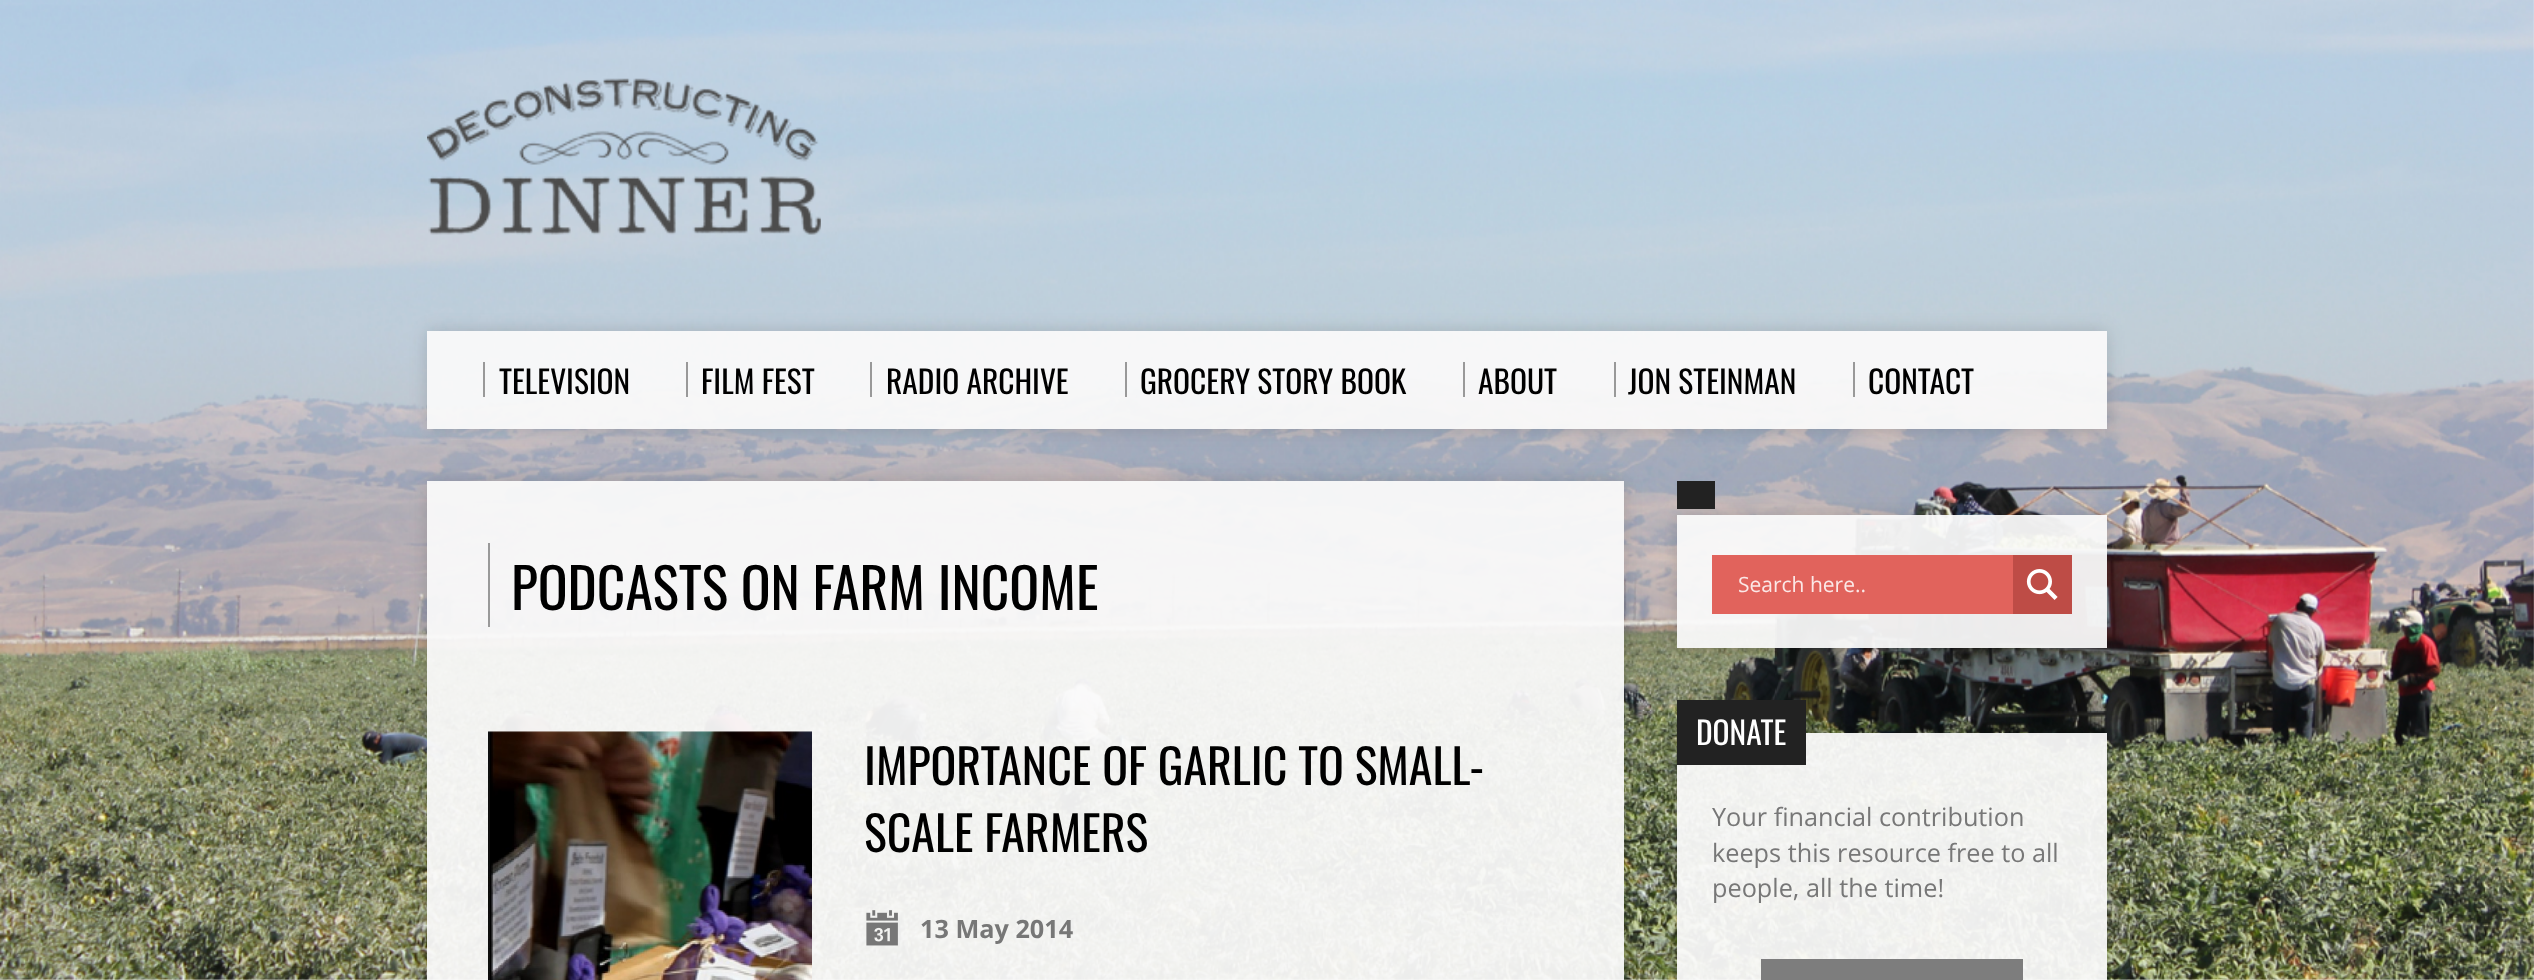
<svg xmlns="http://www.w3.org/2000/svg" width="2534" height="980" viewBox="0 0 2534 980">
  <defs>
    <clipPath id="clip1"><path d="M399 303H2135V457H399ZM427 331H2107V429H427Z" clip-rule="evenodd"/></clipPath>
    <filter id="blur1" x="-50%" y="-200%" width="200%" height="500%"><feGaussianBlur stdDeviation="9"/></filter>
    <clipPath id="clip2"><path d="M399 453H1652V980H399ZM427 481H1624V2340H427Z" clip-rule="evenodd"/></clipPath>
    <clipPath id="clip3"><path d="M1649 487H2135V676H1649ZM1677 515H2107V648H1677Z" clip-rule="evenodd"/></clipPath>
    <clipPath id="clip4"><path d="M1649 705H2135V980H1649ZM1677 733H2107V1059H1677Z" clip-rule="evenodd"/></clipPath>
  </defs>
  <rect width="100%" height="100%" fill="#ffffff"/>
  <image x="0" y="0" width="2534" height="980" href="img1.png"/>
  <image x="427" y="78" width="394" height="157" href="img2.png"/>
  <g clip-path="url(#clip1)">
    <rect x="427" y="331" width="1680" height="98" fill="#000000" fill-opacity="0.15" filter="url(#blur1)"/>
  </g>
  <rect x="427" y="331" width="1680" height="98" fill="#fafafa" fill-opacity="0.94"/>
  <rect x="483" y="362" width="2" height="35" fill="#999999"/>
  <text x="499" y="394" font-family="Oswald" font-size="31.5" fill="#000000">TELEVISION</text>
  <rect x="686" y="362" width="2" height="35" fill="#999999"/>
  <text x="701" y="394" font-family="Oswald" font-size="31.5" fill="#000000">FILM FEST</text>
  <rect x="870" y="362" width="2" height="35" fill="#999999"/>
  <text x="886" y="394" font-family="Oswald" font-size="31.5" fill="#000000">RADIO ARCHIVE</text>
  <rect x="1125" y="362" width="2" height="35" fill="#999999"/>
  <text x="1140" y="394" font-family="Oswald" font-size="31.5" fill="#000000">GROCERY STORY BOOK</text>
  <rect x="1463" y="362" width="2" height="35" fill="#999999"/>
  <text x="1478" y="394" font-family="Oswald" font-size="31.5" fill="#000000">ABOUT</text>
  <rect x="1614" y="362" width="2" height="35" fill="#999999"/>
  <text x="1628" y="394" font-family="Oswald" font-size="31.5" fill="#000000">JON STEINMAN</text>
  <rect x="1853" y="362" width="2" height="35" fill="#999999"/>
  <text x="1868" y="394" font-family="Oswald" font-size="31.5" fill="#000000">CONTACT</text>
  <g clip-path="url(#clip2)">
    <rect x="427" y="481" width="1197" height="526" fill="#000000" fill-opacity="0.15" filter="url(#blur1)"/>
  </g>
  <rect x="427" y="481" width="1197" height="499" fill="#fafafa" fill-opacity="0.94"/>
  <rect x="488" y="543" width="2" height="84" fill="#999999"/>
  <text x="511" y="610" font-family="Oswald" font-size="55.5" fill="#000000">PODCASTS ON FARM INCOME</text>
  <image x="488" y="731" width="324" height="249" href="img3.png"/>
  <text x="864" y="785" font-family="Oswald" font-size="47.9" fill="#000000">IMPORTANCE OF GARLIC TO SMALL-</text>
  <text x="864" y="852" font-family="Oswald" font-size="47.9" fill="#000000">SCALE FARMERS</text>
  <image x="866" y="910" width="32" height="36" href="img4.png"/>
  <text x="920" y="938" font-family="Open Sans" font-size="25.25" font-weight="bold" fill="#777777">13 May 2014</text>
  <g clip-path="url(#clip3)">
    <rect x="1677" y="515" width="430" height="133" fill="#000000" fill-opacity="0.15" filter="url(#blur1)"/>
  </g>
  <rect x="1677" y="515" width="430" height="133" fill="#fafafa" fill-opacity="0.94"/>
  <rect x="1677" y="481" width="38" height="28" fill="#222222"/>
  <rect x="1712" y="555" width="301" height="59" fill="#e1635c"/>
  <text x="1738" y="592" font-family="Open Sans" font-size="21" fill="#fbe8e7">Search here..</text>
  <rect x="2013" y="555" width="59" height="59" fill="#be4c46"/>
  <image x="2026" y="569" width="32" height="31" href="img5.png"/>
  <g clip-path="url(#clip4)">
    <rect x="1677" y="733" width="430" height="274" fill="#000000" fill-opacity="0.15" filter="url(#blur1)"/>
  </g>
  <rect x="1677" y="733" width="430" height="247" fill="#fafafa" fill-opacity="0.94"/>
  <rect x="1677" y="700" width="129" height="65" fill="#222222"/>
  <text x="1696" y="745" font-family="Oswald" font-size="31.5" fill="#ffffff">DONATE</text>
  <text x="1712" y="826" font-family="Open Sans" font-size="25.25" fill="#777777">Your financial contribution</text>
  <text x="1712" y="862" font-family="Open Sans" font-size="25.25" fill="#777777">keeps this resource free to all</text>
  <text x="1712" y="897" font-family="Open Sans" font-size="25.25" fill="#777777">people, all the time!</text>
  <rect x="1761" y="959" width="262" height="21" fill="#7d7d7d"/>
</svg>
